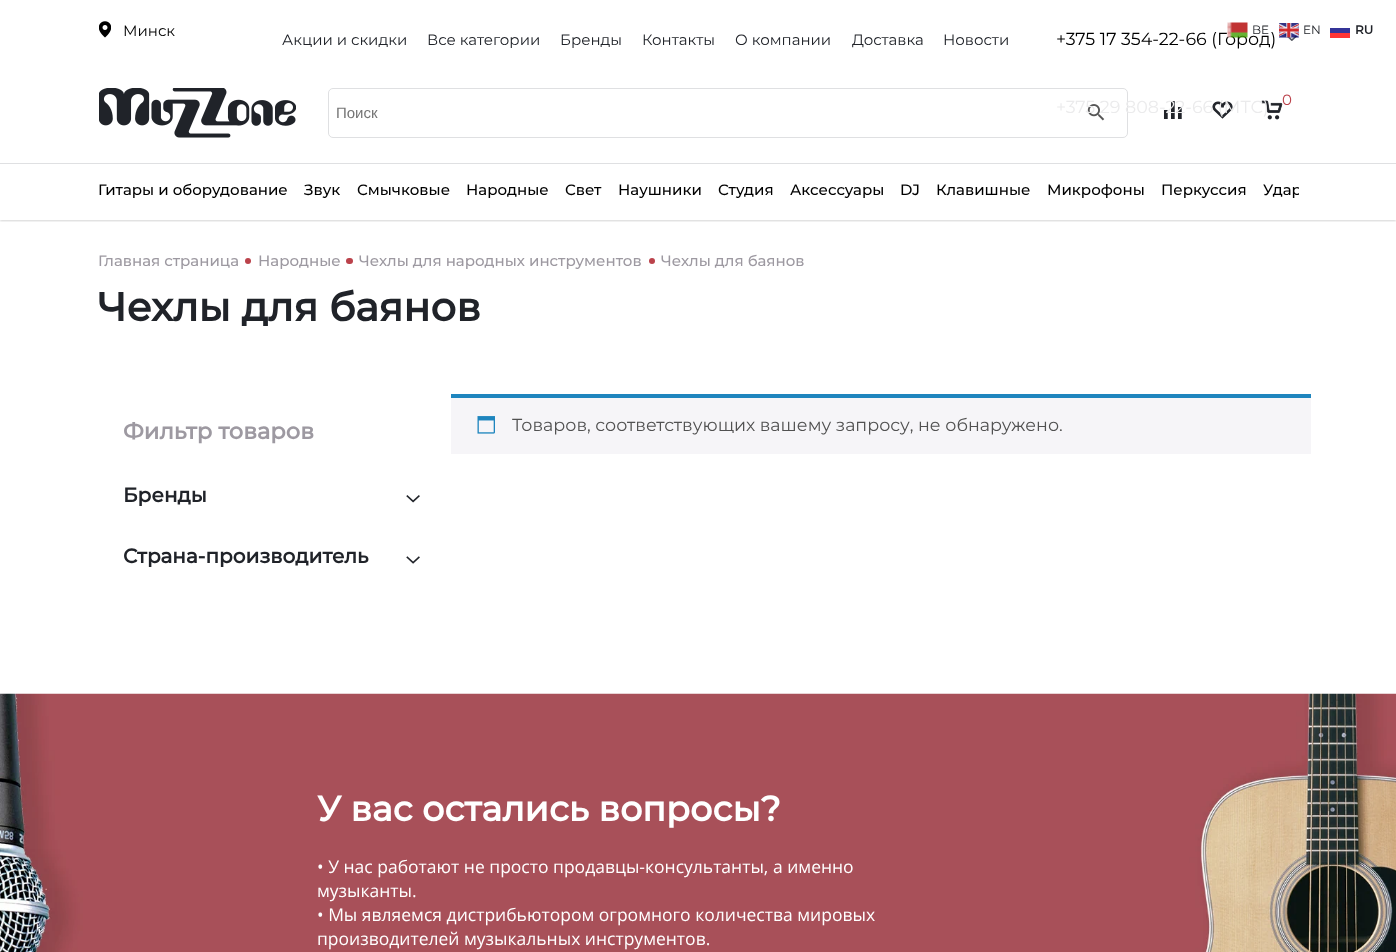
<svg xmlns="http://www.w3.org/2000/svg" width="1396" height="952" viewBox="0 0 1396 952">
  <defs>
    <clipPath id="clip1"><rect x="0" y="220" width="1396" height="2"/></clipPath>
    <filter id="blur1" x="-50%" y="-200%" width="200%" height="500%"><feGaussianBlur stdDeviation="1"/></filter>
    <clipPath id="clip2"><rect x="99" y="164" width="1200" height="41"/></clipPath>
  </defs>
  <rect width="100%" height="100%" fill="#ffffff"/>
  <image x="99" y="21" width="12" height="17" href="img1.png"/>
  <text x="123" y="36" font-family="Montserrat" font-size="15" fill="#000000">Минск</text>
  <text x="282" y="45" font-family="Montserrat" font-size="15" fill="#202329">Акции и скидки</text>
  <text x="427" y="45" font-family="Montserrat" font-size="15" fill="#202329">Все категории</text>
  <text x="560" y="45" font-family="Montserrat" font-size="15" fill="#202329">Бренды</text>
  <text x="642" y="45" font-family="Montserrat" font-size="15" fill="#202329">Контакты</text>
  <text x="735" y="45" font-family="Montserrat" font-size="15" fill="#202329">О компании</text>
  <text x="852" y="45" font-family="Montserrat" font-size="15" fill="#202329">Доставка</text>
  <text x="943" y="45" font-family="Montserrat" font-size="15" fill="#202329">Новости</text>
  <text x="1056" y="45" font-family="Montserrat" font-size="17.5" fill="#000000">+375 17 354-22-66 (Город)</text>
  <image x="1285" y="34" width="14" height="7" href="img2.png"/>
  <image x="1163" y="100" width="19" height="20" href="img4.png"/>
  <image x="1212" y="101" width="21" height="18" href="img5.png"/>
  <image x="1261" y="100" width="22" height="20" href="img6.png"/>
  <rect x="328.5" y="88.5" width="799" height="49" rx="4.5" fill="none" stroke="#dfe0e2"/>
  <image x="1087" y="104" width="18" height="17" href="img7.png"/>
  <text x="1056" y="113" font-family="Montserrat" font-size="17.5" fill="#ebebec">+375 29 808-22-66 (МТС)</text>
  <image x="99" y="88" width="197" height="50" href="img3.png"/>
  <text x="1282" y="105" font-family="Montserrat" font-size="15" fill="#bb424b">0</text>
  <text x="336" y="118" font-family="Liberation Sans" font-size="15" fill="#757575">Поиск</text>
  <g clip-path="url(#clip1)">
    <rect x="0" y="164" width="1396" height="57" fill="#000000" fill-opacity="0.17" filter="url(#blur1)"/>
  </g>
  <rect x="0" y="163" width="1396" height="1" fill="#dfe0e2"/>
  <text x="98" y="195" font-family="Montserrat" font-size="15" font-weight="500" fill="#000000">Гитары и оборудование</text>
  <text x="304" y="195" font-family="Montserrat" font-size="15" font-weight="500" fill="#000000">Звук</text>
  <text x="357" y="195" font-family="Montserrat" font-size="15" font-weight="500" fill="#000000">Смычковые</text>
  <text x="466" y="195" font-family="Montserrat" font-size="15" font-weight="500" fill="#000000">Народные</text>
  <text x="565" y="195" font-family="Montserrat" font-size="15" font-weight="500" fill="#000000">Свет</text>
  <text x="618" y="195" font-family="Montserrat" font-size="15" font-weight="500" fill="#000000">Наушники</text>
  <text x="718" y="195" font-family="Montserrat" font-size="15" font-weight="500" fill="#000000">Студия</text>
  <text x="790" y="195" font-family="Montserrat" font-size="15" font-weight="500" fill="#000000">Аксессуары</text>
  <text x="900" y="195" font-family="Montserrat" font-size="15" font-weight="500" fill="#000000">DJ</text>
  <text x="936" y="195" font-family="Montserrat" font-size="15" font-weight="500" fill="#000000">Клавишные</text>
  <text x="1047" y="195" font-family="Montserrat" font-size="15" font-weight="500" fill="#000000">Микрофоны</text>
  <text x="1161" y="195" font-family="Montserrat" font-size="15" font-weight="500" fill="#000000">Перкуссия</text>
  <g clip-path="url(#clip2)">
    <text x="1263" y="195" font-family="Montserrat" font-size="15" font-weight="500" fill="#000000">Удар</text>
  </g>
  <image x="1227" y="22" width="21" height="16" href="img8.png"/>
  <text x="1252" y="34" font-family="Montserrat" font-size="12" fill="#202329">BE</text>
  <image x="1279" y="23" width="20" height="15" href="img9.png"/>
  <text x="1303" y="34" font-family="Montserrat" font-size="12" fill="#202329">EN</text>
  <text x="1355" y="34" font-family="Montserrat" font-size="12" font-weight="bold" fill="#202329">RU</text>
  <rect x="1330" y="28" width="20" height="5" fill="#343498"/>
  <rect x="1330" y="33" width="20" height="5" fill="#fe3434"/>
  <text x="98" y="266" font-family="Montserrat" font-size="15" font-weight="500" fill="#9d99a1">Главная страница</text>
  <circle cx="248" cy="261" r="3" fill="#bb424b"/>
  <text x="258" y="266" font-family="Montserrat" font-size="15" font-weight="500" fill="#9d99a1">Народные</text>
  <rect x="346" y="258" width="7" height="6" rx="3" fill="#bb424b"/>
  <text x="359" y="266" font-family="Montserrat" font-size="15" font-weight="500" fill="#9d99a1">Чехлы для народных инструментов</text>
  <circle cx="652" cy="261" r="3" fill="#bb424b"/>
  <text x="661" y="266" font-family="Montserrat" font-size="15" font-weight="500" fill="#9d99a1">Чехлы для баянов</text>
  <text x="98" y="321" font-family="Montserrat" font-size="40" font-weight="bold" fill="#202329">Чехлы для баянов</text>
  <text x="123" y="439" font-family="Montserrat" font-size="22.5" font-weight="bold" fill="#9d99a1">Фильтр товаров</text>
  <text x="123" y="502" font-family="Montserrat" font-size="20" font-weight="bold" fill="#202329">Бренды</text>
  <image x="406" y="495" width="14" height="8" href="img10.png"/>
  <text x="123" y="563" font-family="Montserrat" font-size="20" font-weight="bold" fill="#202329">Страна-производитель</text>
  <image x="406" y="556" width="14" height="8" href="img11.png"/>
  <rect x="451" y="398" width="860" height="56" fill="#f6f5f8"/>
  <rect x="451" y="394" width="860" height="4" fill="#1e85be"/>
  <image x="477" y="416" width="18" height="18" href="img12.png"/>
  <text x="512" y="431" font-family="Montserrat" font-size="17.5" fill="#515151">Товаров, соответствующих вашему запросу, не обнаружено.</text>
  <image x="0" y="693" width="1396" height="259" href="img13.png"/>
  <text x="317" y="821" font-family="Montserrat" font-size="35" font-weight="bold" fill="#ffffff">У вас остались вопросы?</text>
  <text x="317" y="873" font-family="Open Sans" font-size="17.5" fill="#ffffff">• У нас работают не просто продавцы-консультанты, а именно</text>
  <text x="317" y="897" font-family="Open Sans" font-size="17.5" fill="#ffffff">музыканты.</text>
  <text x="317" y="921" font-family="Open Sans" font-size="17.5" fill="#ffffff">• Мы являемся дистрибьютором огромного количества мировых</text>
  <text x="317" y="945" font-family="Open Sans" font-size="17.5" fill="#ffffff">производителей музыкальных инструментов.</text>
</svg>
